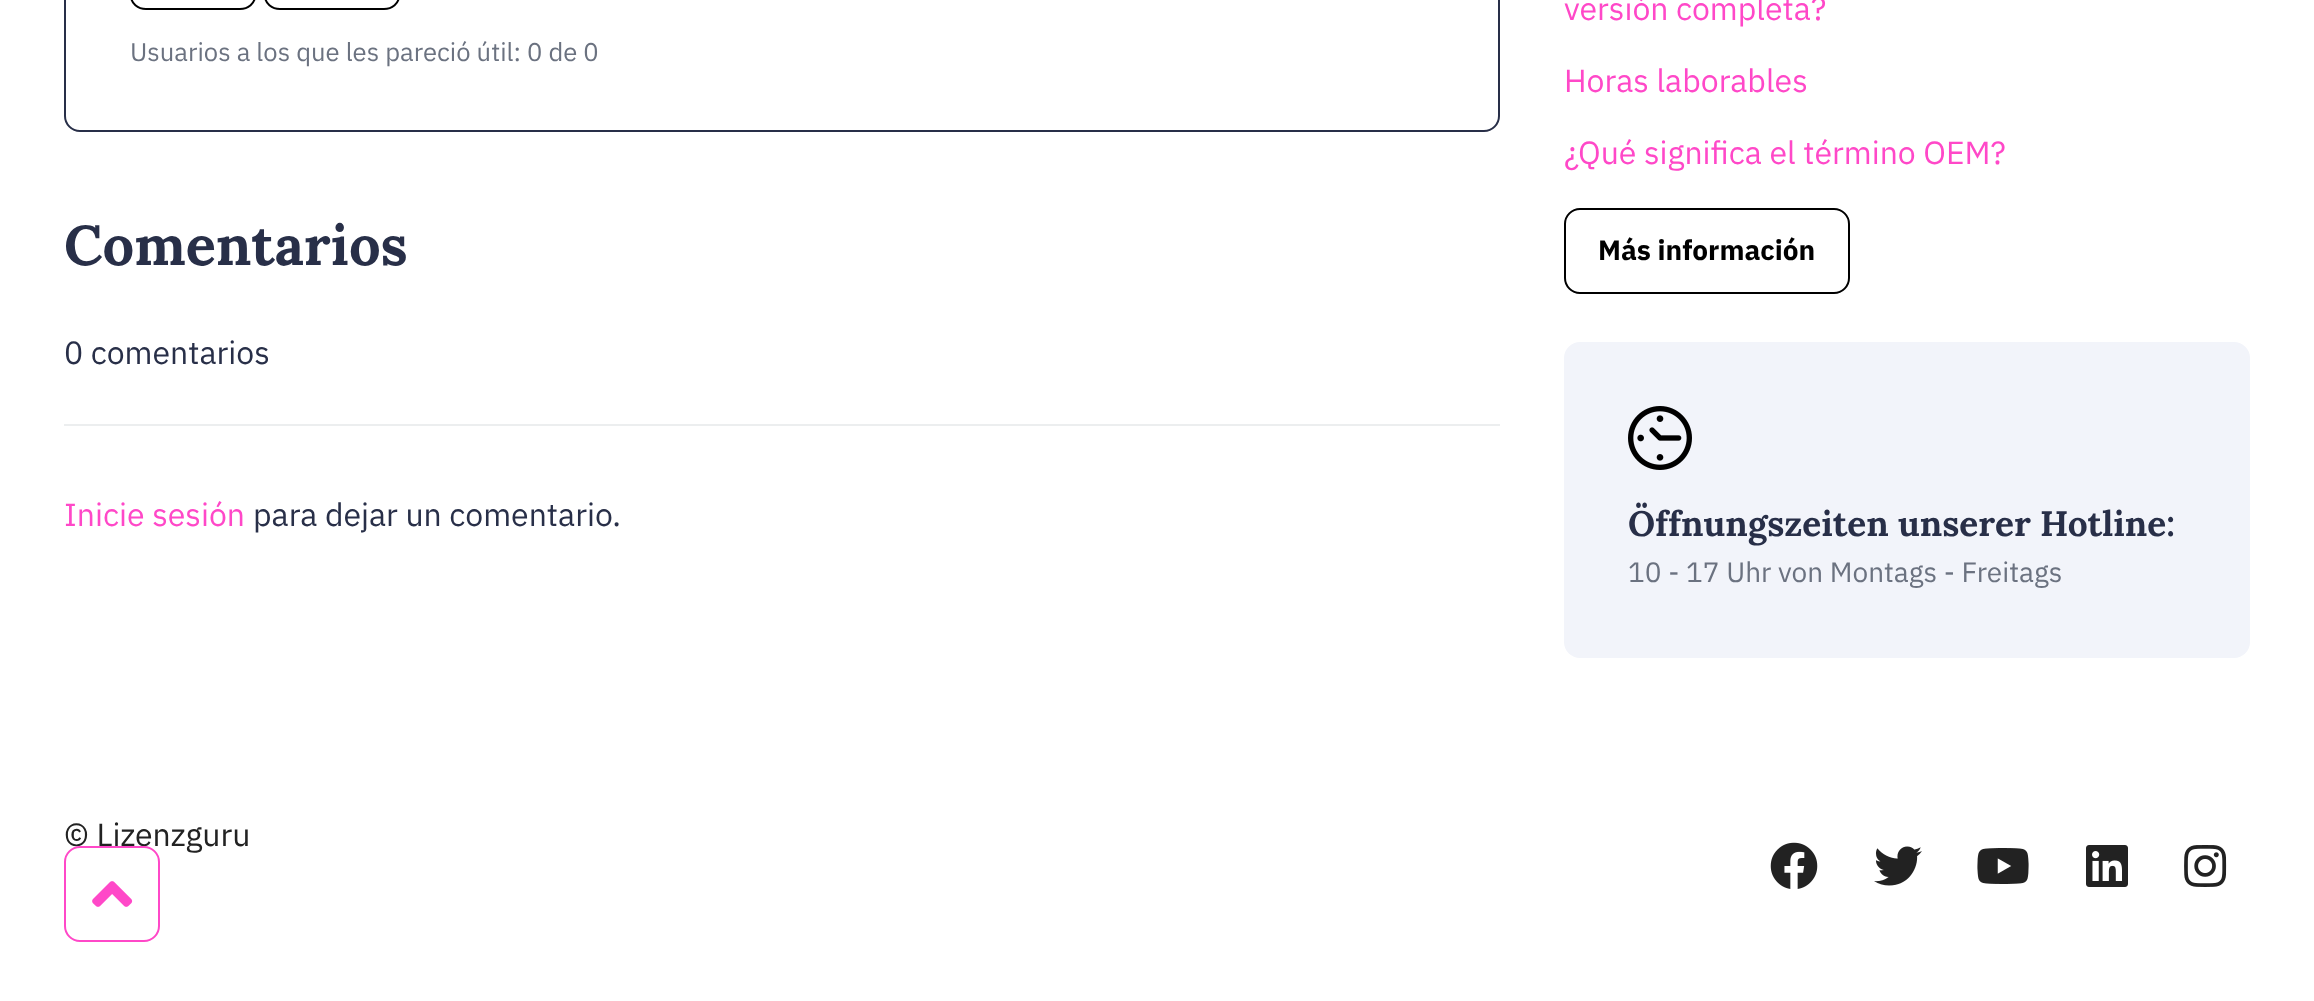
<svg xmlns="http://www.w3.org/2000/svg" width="2314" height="1001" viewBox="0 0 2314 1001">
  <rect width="100%" height="100%" fill="#ffffff"/>
  <rect x="65" y="-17" width="1434" height="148" rx="15" fill="none" stroke="#282f48" stroke-width="2"/>
  <rect x="131" y="-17" width="124" height="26" rx="15" fill="none" stroke="#000000" stroke-width="2"/>
  <rect x="265" y="-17" width="134" height="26" rx="15" fill="none" stroke="#000000" stroke-width="2"/>
  <text x="130" y="61" font-family="IBM Plex Sans" font-size="25.6" fill="#6b7280">Usuarios a los que les pareció útil: 0 de 0</text>
  <text x="64" y="265" font-family="Lora" font-size="56" font-weight="bold" fill="#282f48">Comentarios</text>
  <rect x="64" y="424" width="1436" height="2" fill="#eceeef"/>
  <text x="64" y="364" font-family="IBM Plex Sans" font-size="32" fill="#282f48">0 comentarios</text>
  <text x="64" y="526" font-family="IBM Plex Sans" font-size="32" fill="#ff48c8">Inicie sesión</text>
  <text x="253" y="526" font-family="IBM Plex Sans" font-size="32" fill="#282f48">para dejar un comentario.</text>
  <text x="1564" y="20" font-family="IBM Plex Sans" font-size="32" fill="#ff48c8">versión completa?</text>
  <text x="1564" y="92" font-family="IBM Plex Sans" font-size="32" fill="#ff48c8">Horas laborables</text>
  <text x="1564" y="164" font-family="IBM Plex Sans" font-size="32" fill="#ff48c8">¿Qué significa el término OEM?</text>
  <rect x="1565" y="209" width="284" height="84" rx="15" fill="none" stroke="#000000" stroke-width="2"/>
  <text x="1598" y="260" font-family="IBM Plex Sans" font-size="28" font-weight="bold" fill="#000000">Más información</text>
  <rect x="1564" y="342" width="686" height="316" rx="16" fill="#f2f4fa"/>
  <image x="1628" y="406" width="64" height="64" href="img1.png"/>
  <text x="1628" y="536" font-family="Lora" font-size="35.25" font-weight="bold" fill="#282f48">Öffnungszeiten unserer Hotline:</text>
  <text x="1628" y="582" font-family="IBM Plex Sans" font-size="28" fill="#6b7280">10 - 17 Uhr von Montags - Freitags</text>
  <text x="64" y="846" font-family="IBM Plex Sans" font-size="32" fill="#222222">© Lizenzguru</text>
  <image x="1770" y="842" width="48" height="47" href="img2.png"/>
  <image x="1874" y="846" width="48" height="40" href="img3.png"/>
  <image x="1977" y="848" width="52" height="36" href="img4.png"/>
  <image x="2086" y="845" width="42" height="42" href="img5.png"/>
  <image x="2184" y="845" width="43" height="42" href="img6.png"/>
  <rect x="65" y="847" width="94" height="94" rx="15" fill="#ffffff" stroke="#ff48c8" stroke-width="2"/>
  <image x="92" y="881" width="41" height="26" href="img7.png"/>
</svg>
